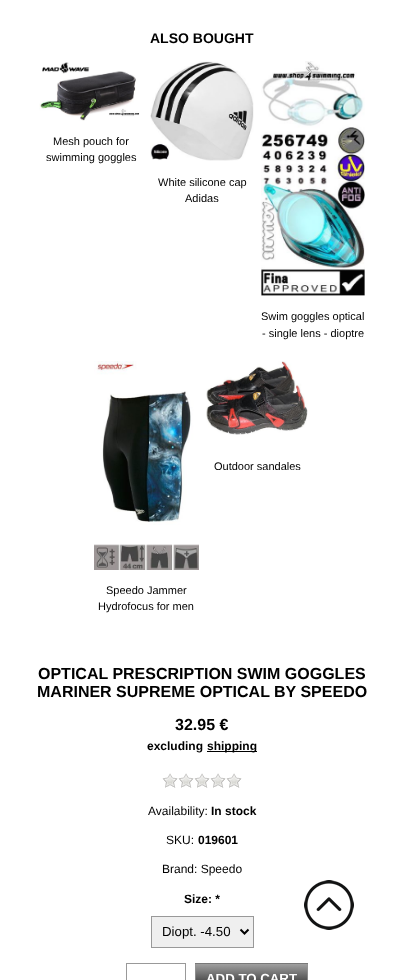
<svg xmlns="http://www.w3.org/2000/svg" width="404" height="980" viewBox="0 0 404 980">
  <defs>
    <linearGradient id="g1" gradientUnits="userSpaceOnUse" x1="252" y1="934" x2="252" y2="964"><stop offset="0" stop-color="#a0a0a0"/><stop offset="1" stop-color="#111111"/></linearGradient>
    <linearGradient id="g2" gradientUnits="userSpaceOnUse" x1="252" y1="964" x2="252" y2="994"><stop offset="0" stop-color="#a0a0a0"/><stop offset="1" stop-color="#111111"/></linearGradient>
  </defs>
  <rect width="100%" height="100%" fill="#ffffff"/>
  <text x="150" y="43" font-family="Liberation Sans" font-size="14" font-weight="bold" fill="#000000">ALSO BOUGHT</text>
  <image x="39" y="62" width="101" height="59" href="img1.png"/>
  <text x="53" y="145" font-family="Liberation Sans" font-size="11" fill="#000000">Mesh pouch for</text>
  <text x="46" y="161" font-family="Liberation Sans" font-size="11" fill="#000000">swimming goggles</text>
  <image x="150" y="61" width="104" height="100" href="img2.png"/>
  <text x="158" y="186" font-family="Liberation Sans" font-size="11" fill="#000000">White silicone cap</text>
  <text x="185" y="202" font-family="Liberation Sans" font-size="11" fill="#000000">Adidas</text>
  <image x="261" y="61" width="104" height="235" href="img3.png"/>
  <text x="261" y="320" font-family="Liberation Sans" font-size="11" fill="#000000">Swim goggles optical</text>
  <text x="262" y="337" font-family="Liberation Sans" font-size="11" fill="#000000">- single lens - dioptre</text>
  <image x="205" y="361" width="103" height="74" href="img4.png"/>
  <text x="214" y="470" font-family="Liberation Sans" font-size="11" fill="#000000">Outdoor sandales</text>
  <image x="94" y="361" width="105" height="209" href="img5.png"/>
  <text x="106" y="594" font-family="Liberation Sans" font-size="11" fill="#000000">Speedo Jammer</text>
  <text x="98" y="610" font-family="Liberation Sans" font-size="11" fill="#000000">Hydrofocus for men</text>
  <text x="38" y="679" font-family="Liberation Sans" font-size="16" font-weight="bold" fill="#000000">OPTICAL PRESCRIPTION SWIM GOGGLES</text>
  <text x="37" y="697" font-family="Liberation Sans" font-size="16" font-weight="bold" fill="#000000">MARINER SUPREME OPTICAL BY SPEEDO</text>
  <text x="175" y="730" font-family="Liberation Sans" font-size="16" font-weight="bold" fill="#000000">32.95 €</text>
  <text x="147" y="750" font-family="Liberation Sans" font-size="12" font-weight="bold" fill="#000000">excluding</text>
  <rect x="207" y="751" width="50" height="1" fill="#000000"/>
  <text x="207" y="750" font-family="Liberation Sans" font-size="12" font-weight="bold" fill="#000000">shipping</text>
  <image x="162" y="773" width="80" height="15" href="img6.png"/>
  <text x="148" y="815" font-family="Liberation Sans" font-size="12" fill="#000000">Availability:</text>
  <text x="211" y="815" font-family="Liberation Sans" font-size="12" font-weight="bold" fill="#000000">In stock</text>
  <text x="166" y="844" font-family="Liberation Sans" font-size="12" fill="#000000">SKU:</text>
  <text x="198" y="844" font-family="Liberation Sans" font-size="12" font-weight="bold" fill="#000000">019601</text>
  <text x="162" y="873" font-family="Liberation Sans" font-size="12" fill="#000000">Brand: Speedo</text>
  <text x="184" y="903" font-family="Liberation Sans" font-size="12" font-weight="bold" fill="#000000">Size: *</text>
  <rect x="151.5" y="916.5" width="102" height="31" fill="#efefef" stroke="#999999"/>
  <path d="M240.5 929.5L244.5 933.5L248.5 929.5" fill="none" stroke="#000000" stroke-width="2"/>
  <text x="162" y="936" font-family="Liberation Sans" font-size="13.25" fill="#000000">Diopt. -4.50</text>
  <rect x="126.5" y="963.5" width="59" height="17" fill="none" stroke="#999999"/>
  <rect x="195" y="963" width="113" height="1" fill="url(#g1)"/>
  <rect x="195" y="964" width="113" height="16" fill="url(#g2)"/>
  <rect x="195.5" y="963.5" width="112" height="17" fill="none" stroke="#949494" stroke-opacity="0.8"/>
  <text x="206" y="983" font-family="Liberation Sans" font-size="13.25" font-weight="bold" fill="#ffffff">ADD TO CART</text>
  <image x="304" y="880" width="50" height="50" href="img7.png"/>
</svg>
